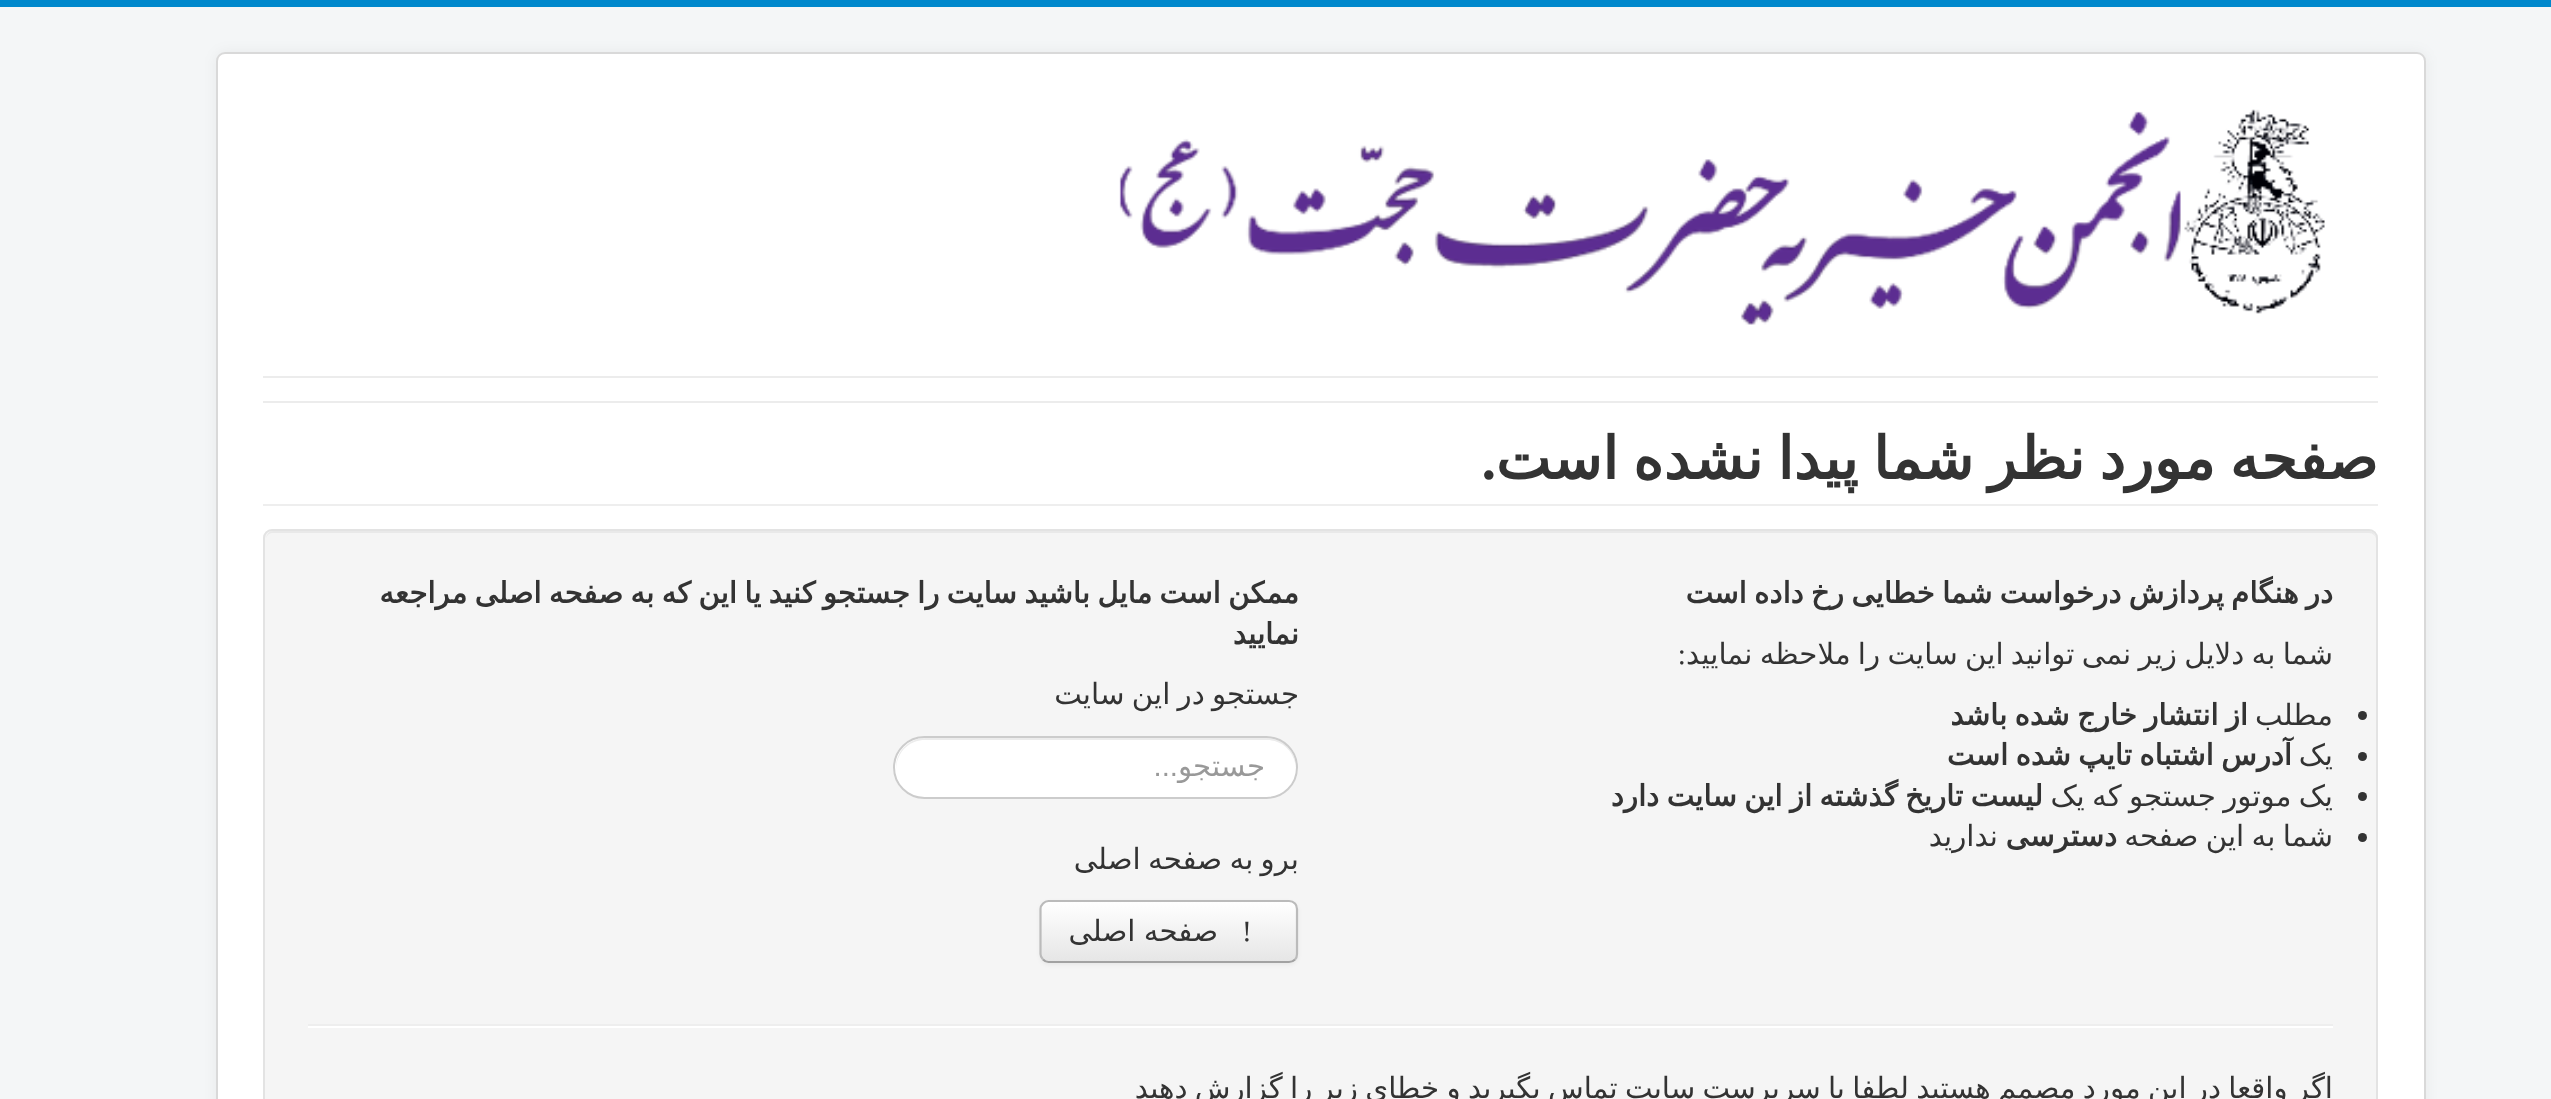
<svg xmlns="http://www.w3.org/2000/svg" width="2551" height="1099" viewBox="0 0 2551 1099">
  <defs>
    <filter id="blur1" x="-50%" y="-200%" width="200%" height="500%"><feGaussianBlur stdDeviation="7"/></filter>
    <clipPath id="clip1"><rect x="936" y="749" width="329" height="34"/></clipPath>
    <filter id="blur2" x="-50%" y="-200%" width="200%" height="500%"><feGaussianBlur stdDeviation="2"/></filter>
    <clipPath id="clip2"><rect x="1040" y="900" width="258" height="63" rx="9"/></clipPath>
    <linearGradient id="g1" gradientUnits="userSpaceOnUse" x1="1169" y1="902" x2="1169" y2="961"><stop offset="0" stop-color="#ffffff"/><stop offset="1" stop-color="#e6e6e6"/></linearGradient>
  </defs>
  <rect width="100%" height="100%" fill="#f4f6f7"/>
  <rect x="0" y="0" width="2551" height="7" fill="#0088cc"/>
  <rect x="216" y="52" width="2210" height="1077" rx="9" fill="#000000" fill-opacity="0.05" filter="url(#blur1)"/>
  <rect x="216" y="52" width="2210" height="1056" rx="9" fill="#ffffff"/>
  <rect x="217" y="53" width="2208" height="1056" rx="8" fill="none" stroke="#000000" stroke-opacity="0.15" stroke-width="2"/>
  <image x="1119" y="111" width="1062" height="214" href="img1.png"/>
  <image x="2184" y="109" width="141" height="205" href="img2.png"/>
  <rect x="263" y="376" width="2115" height="2" fill="#ececec"/>
  <rect x="263" y="401" width="2115" height="2" fill="#ececec"/>
  <rect x="263" y="504" width="2115" height="2" fill="#eeeeee"/>
  <text x="2378" y="479" word-spacing="-4" font-family="DejaVu Sans" font-size="58.5" font-weight="bold" direction="rtl" fill="#333333">صفحه مورد نظر شما پیدا نشده است</text>
  <text x="1496" y="479" font-family="Liberation Serif" font-size="58.5" font-weight="bold" direction="rtl" fill="#333333">.</text>
  <rect x="263" y="529" width="2115" height="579" rx="9" fill="#f5f5f5"/>
  <path d="M272 533H2369C2373 533 2376 536 2376 540C2376 536 2374 531 2369 531H273C268 531 266 536 266 540C266 536 269 533 272 533Z" fill="#e9e9e9"/>
  <rect x="264" y="530" width="2113" height="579" rx="8" fill="none" stroke="#e3e3e3" stroke-width="2"/>
  <text x="2333" y="603" word-spacing="-2" font-family="DejaVu Sans" font-size="29.25" font-weight="bold" direction="rtl" fill="#333333">در هنگام پردازش درخواست شما خطایی رخ داده است</text>
  <text x="2333" y="664" word-spacing="-2" font-family="DejaVu Sans" font-size="29.25" direction="rtl" fill="#333333">شما به دلایل زیر نمی توانید این سایت را ملاحظه نمایید</text>
  <text x="1686" y="664" font-family="Liberation Serif" font-size="29.25" direction="rtl" fill="#333333">:</text>
  <circle cx="2362.5" cy="715.5" r="4.5" fill="#333333"/>
  <text x="2333" y="725" font-family="DejaVu Sans" font-size="29.25" direction="rtl" fill="#333333">مطلب</text>
  <text x="2248" y="725" word-spacing="-2" font-family="DejaVu Sans" font-size="29.25" font-weight="bold" direction="rtl" fill="#333333">از انتشار خارج شده باشد</text>
  <circle cx="2362.5" cy="756.5" r="4.5" fill="#333333"/>
  <text x="2333" y="765" font-family="DejaVu Sans" font-size="29.25" direction="rtl" fill="#333333">یک</text>
  <text x="2292" y="765" word-spacing="-2" font-family="DejaVu Sans" font-size="29.25" font-weight="bold" direction="rtl" fill="#333333">آدرس اشتباه تایپ شده است</text>
  <circle cx="2362.5" cy="796.5" r="4.5" fill="#333333"/>
  <text x="2333" y="806" word-spacing="-2" font-family="DejaVu Sans" font-size="29.25" direction="rtl" fill="#333333">یک موتور جستجو که یک</text>
  <text x="2043" y="806" word-spacing="-2" font-family="DejaVu Sans" font-size="29.25" font-weight="bold" direction="rtl" fill="#333333">لیست تاریخ گذشته از این سایت دارد</text>
  <circle cx="2362.5" cy="837.5" r="4.5" fill="#333333"/>
  <text x="2333" y="846" word-spacing="-2" font-family="DejaVu Sans" font-size="29.25" direction="rtl" fill="#333333">شما به این صفحه</text>
  <text x="2117" y="846" font-family="DejaVu Sans" font-size="29.25" font-weight="bold" direction="rtl" fill="#333333">دسترسی</text>
  <text x="1998" y="846" font-family="DejaVu Sans" font-size="29.25" direction="rtl" fill="#333333">ندارید</text>
  <text x="1299" y="603" word-spacing="-2" font-family="DejaVu Sans" font-size="29.25" font-weight="bold" direction="rtl" fill="#333333">ممکن است مایل باشید سایت را جستجو کنید یا این که به صفحه اصلی مراجعه</text>
  <text x="1299" y="644" font-family="DejaVu Sans" font-size="29.25" font-weight="bold" direction="rtl" fill="#333333">نمایید</text>
  <text x="1299" y="704" word-spacing="-2" font-family="DejaVu Sans" font-size="29.25" direction="rtl" fill="#333333">جستجو در این سایت</text>
  <rect x="893" y="736" width="405" height="63" rx="31.5" fill="#ffffff"/>
  <path d="M925 740H1267C1283 740 1295 752 1296 769V768C1296 751 1283 738 1266 738H926C909 738 896 751 896 768V769C897 752 909 740 925 740Z" fill="#ececec"/>
  <rect x="894" y="737" width="403" height="61" rx="30.5" fill="none" stroke="#cccccc" stroke-width="2"/>
  <g clip-path="url(#clip1)">
    <text x="1265" y="776" font-family="DejaVu Sans" font-size="29.25" direction="rtl" fill="#999999">جستجو</text>
  </g>
  <text x="1178" y="776" font-family="Liberation Sans" font-size="29.25" direction="rtl" fill="#999999">...</text>
  <text x="1299" y="869" word-spacing="-2" font-family="DejaVu Sans" font-size="29.25" direction="rtl" fill="#333333">برو به صفحه اصلی</text>
  <rect x="1040" y="902" width="258" height="63" rx="9" fill="#000000" fill-opacity="0.05" filter="url(#blur2)"/>
  <g clip-path="url(#clip2)">
    <rect x="1040" y="902" width="258" height="59" fill="url(#g1)"/>
  </g>
  <path d="M1295 959.5C1293.5 961 1291.5 962 1289 962H1048.5C1046.5 962 1044.5 961 1043 959.5" fill="none" stroke="#a2a2a2" stroke-width="2.2"/>
  <path d="M1043 959.5C1041.5 958 1040.5 956 1040.5 954V909C1040.5 907 1041.5 905 1043 903.5C1044.5 902 1046.5 901 1048.5 901H1289C1291.5 901 1293.5 902 1295 903.5C1296.5 905 1297 907 1297 909V954C1297 956 1296.5 958 1295 959.5" fill="none" stroke="#bbbbbb" stroke-width="2.2"/>
  <text x="1242" y="941" font-family="Liberation Serif" font-size="29.25" fill="#333333">!</text>
  <text x="1218" y="941" word-spacing="-1" font-family="DejaVu Sans" font-size="29.25" direction="rtl" fill="#333333">صفحه اصلی</text>
  <rect x="308" y="1024" width="2025" height="2" fill="#eeeeee"/>
  <rect x="308" y="1026" width="2025" height="2" fill="#ffffff"/>
  <text x="2333" y="1098" word-spacing="-2" font-family="DejaVu Sans" font-size="29.25" direction="rtl" fill="#333333">اگر واقعا در این مورد مصمم هستید لطفا با سرپرست سایت تماس بگیرید و خطای زیر را گزارش دهید</text>
</svg>
